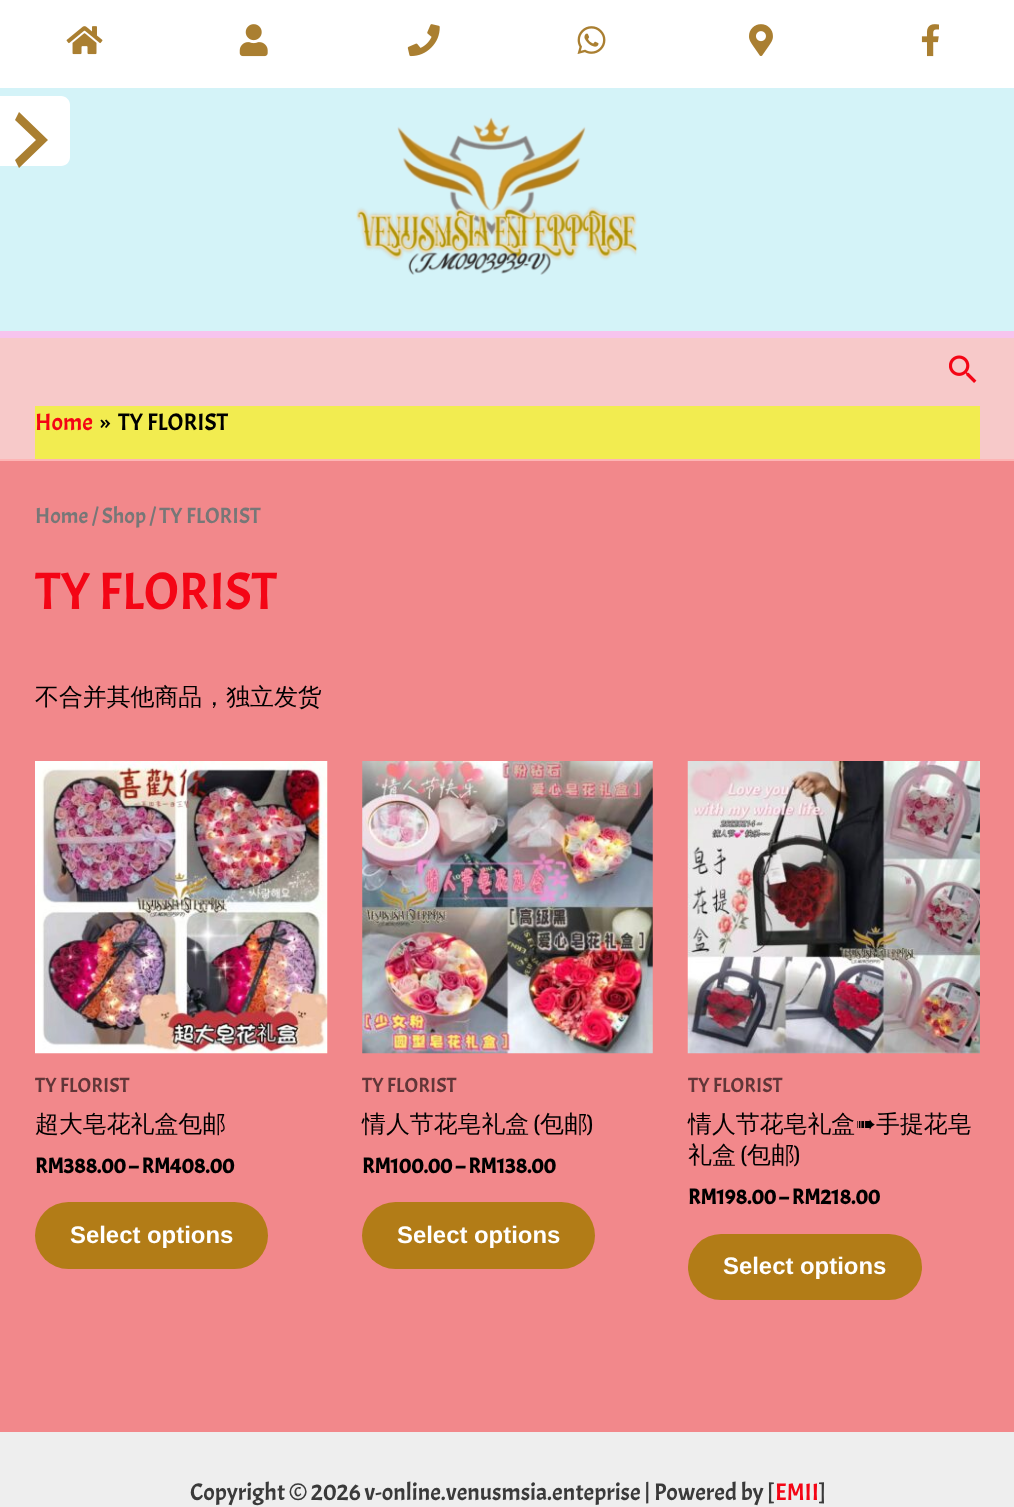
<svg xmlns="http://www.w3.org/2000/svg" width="1014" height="1507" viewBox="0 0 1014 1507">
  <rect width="100%" height="100%" fill="#f2888b"/>
  <rect x="0" y="0" width="1014" height="88" fill="#ffffff"/>
  <image x="66" y="26" width="37" height="29" href="img1.png"/>
  <image x="239" y="24" width="29" height="33" href="img2.png"/>
  <image x="407" y="24" width="33" height="33" href="img3.png"/>
  <image x="577" y="26" width="29" height="28" href="img4.png"/>
  <image x="749" y="24" width="24" height="32" href="img5.png"/>
  <image x="921" y="24" width="18" height="33" href="img6.png"/>
  <rect x="0" y="88" width="1014" height="243" fill="#d4f3f8"/>
  <path d="M-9 96H61C66 96 70 100 70 105V157C70 162 66 166 61 166H-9Z" fill="#ffffff"/>
  <path d="M15 160L36 140L15 120L19 112L48 140L19 168Z" fill="#aa7f31"/>
  <rect x="0" y="331" width="1014" height="7" fill="#f7c4ee"/>
  <image x="356" y="117" width="282" height="158" href="img7.png"/>
  <rect x="0" y="338" width="1014" height="121" fill="#f7c9c9"/>
  <rect x="0" y="459" width="1014" height="2" fill="#fdb5b5"/>
  <image x="949" y="355" width="28" height="28" href="img8.png"/>
  <rect x="35" y="406" width="945" height="53" fill="#f2ec50"/>
  <text x="35" y="430" font-family="Acme" font-size="23.9" fill="#f40515">Home</text>
  <text x="100" y="430" font-family="Acme" font-size="23.9" fill="#000000">»</text>
  <text x="118" y="430" font-family="Acme" font-size="23.9" fill="#000000">TY FLORIST</text>
  <text x="35" y="523" font-family="Acme" font-size="22" fill="#777777">Home / Shop / TY FLORIST</text>
  <text x="35" y="609" font-family="Acme" font-size="52.5" fill="#f40515">TY FLORIST</text>
  <text x="35" y="705" font-family="WenQuanYi Zen Hei" font-size="23.9" font-weight="500" fill="#000000">不合并其他商品，独立发货</text>
  <image x="35" y="761" width="293" height="293" href="img9.png"/>
  <text x="35" y="1092" font-family="Acme" font-size="20.5" fill="#613638">TY FLORIST</text>
  <text x="35" y="1132" font-family="WenQuanYi Zen Hei" font-size="23.9" font-weight="500" fill="#000000">超大皂花礼盒包邮</text>
  <text x="35" y="1173" font-family="Acme" font-size="21.5" font-weight="bold" fill="#000000">RM388.00 – RM408.00</text>
  <rect x="35" y="1202" width="233" height="67" rx="33.5" fill="#b27c17"/>
  <text x="70" y="1243" font-family="Liberation Sans" font-size="23.9" font-weight="bold" fill="#ffffff">Select options</text>
  <image x="362" y="761" width="291" height="293" href="img10.png"/>
  <text x="362" y="1092" font-family="Acme" font-size="20.5" fill="#613638">TY FLORIST</text>
  <text x="362" y="1132" font-family="WenQuanYi Zen Hei" font-size="23.9" font-weight="500" fill="#000000">情人节花皂️礼盒</text>
  <text x="533" y="1132" font-family="Acme" font-size="23.9" fill="#000000">(</text>
  <text x="540" y="1132" font-family="WenQuanYi Zen Hei" font-size="23.9" font-weight="500" fill="#000000">包邮</text>
  <text x="587" y="1132" font-family="Acme" font-size="23.9" fill="#000000">)</text>
  <text x="362" y="1173" font-family="Acme" font-size="21.5" font-weight="bold" fill="#000000">RM100.00 – RM138.00</text>
  <rect x="362" y="1202" width="233" height="67" rx="33.5" fill="#b27c17"/>
  <text x="397" y="1243" font-family="Liberation Sans" font-size="23.9" font-weight="bold" fill="#ffffff">Select options</text>
  <image x="687" y="761" width="293" height="293" href="img11.png"/>
  <text x="688" y="1092" font-family="Acme" font-size="20.5" fill="#613638">TY FLORIST</text>
  <text x="688" y="1132" font-family="WenQuanYi Zen Hei" font-size="23.9" font-weight="500" fill="#000000">情人节花皂礼盒</text>
  <text x="856" y="1132" font-family="DejaVu Sans" font-size="23.9" fill="#000000">➠</text>
  <text x="876" y="1132" font-family="WenQuanYi Zen Hei" font-size="23.9" font-weight="500" fill="#000000">手提花皂</text>
  <text x="688" y="1163" font-family="WenQuanYi Zen Hei" font-size="23.9" font-weight="500" fill="#000000">礼盒</text>
  <text x="740" y="1163" font-family="Acme" font-size="23.9" fill="#000000">(</text>
  <text x="747" y="1163" font-family="WenQuanYi Zen Hei" font-size="23.9" font-weight="500" fill="#000000">包邮</text>
  <text x="794" y="1163" font-family="Acme" font-size="23.9" fill="#000000">)</text>
  <text x="688" y="1204" font-family="Acme" font-size="21.5" font-weight="bold" fill="#000000">RM198.00 – RM218.00</text>
  <rect x="688" y="1234" width="234" height="66" rx="33" fill="#b27c17"/>
  <text x="723" y="1274" font-family="Liberation Sans" font-size="23.9" font-weight="bold" fill="#ffffff">Select options</text>
  <rect x="0" y="1432" width="1014" height="75" fill="#eeeeee"/>
  <text x="190" y="1500" font-family="Acme" font-size="23.9" fill="#3a3a3a">Copyright © 2026 v-online.venusmsia.enteprise | Powered by [</text>
  <text x="775" y="1500" font-family="Acme" font-size="23.9" fill="#f40515">EMII</text>
  <text x="819" y="1500" font-family="Acme" font-size="23.9" fill="#3a3a3a">]</text>
</svg>
